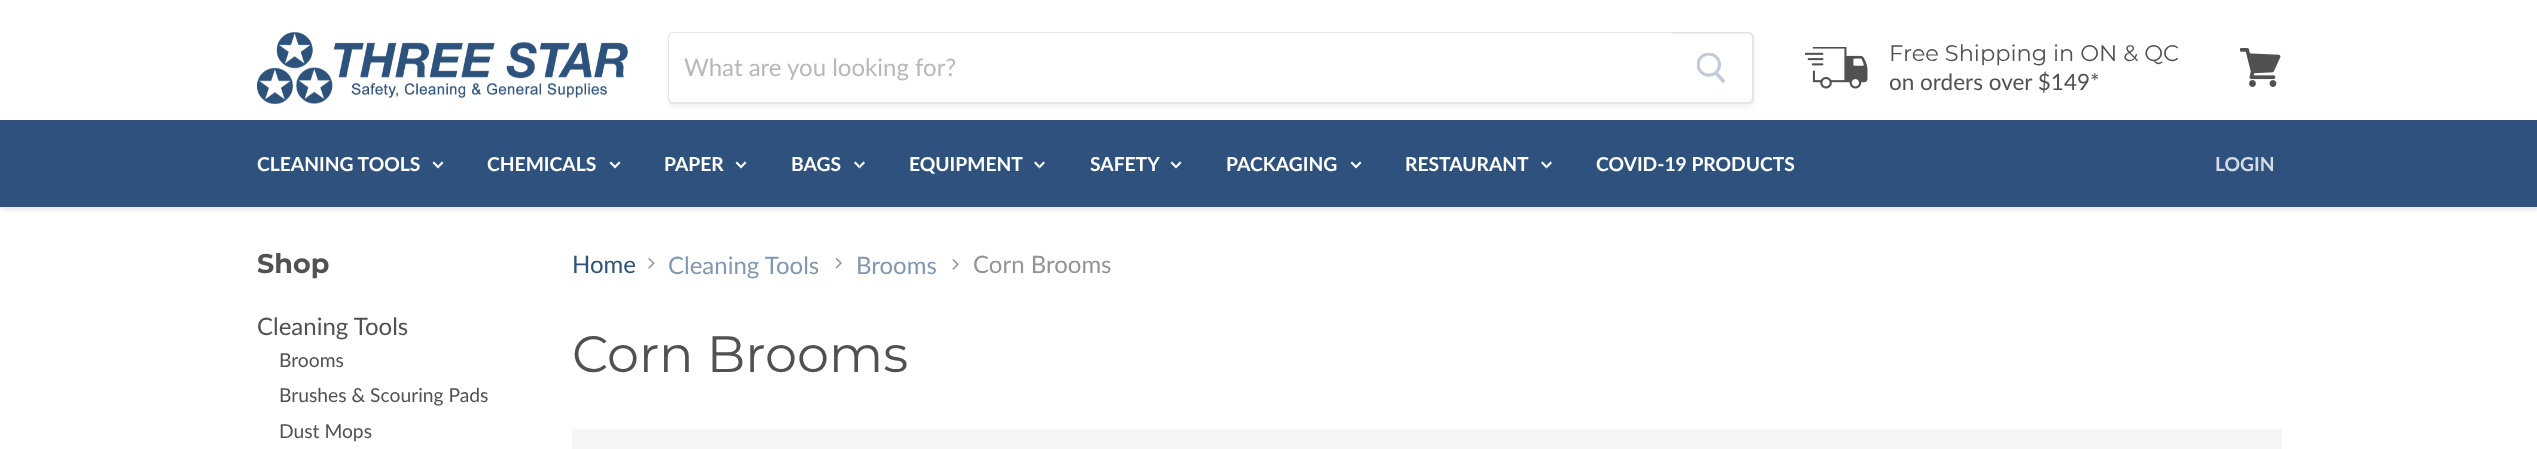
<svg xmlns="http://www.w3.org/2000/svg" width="2537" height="449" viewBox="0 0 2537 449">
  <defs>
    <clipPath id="clip1"><rect x="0" y="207" width="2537" height="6"/></clipPath>
    <filter id="blur1" x="-50%" y="-200%" width="200%" height="500%"><feGaussianBlur stdDeviation="3"/></filter>
    <clipPath id="clip2"><path d="M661 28H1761V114H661ZM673 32H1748C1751.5 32 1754 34.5 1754 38V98C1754 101.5 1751.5 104 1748 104H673C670 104 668 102 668 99V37C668 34 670 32 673 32Z" clip-rule="evenodd"/></clipPath>
    <filter id="blur2" x="-50%" y="-200%" width="200%" height="500%"><feGaussianBlur stdDeviation="2"/></filter>
  </defs>
  <rect width="100%" height="100%" fill="#ffffff"/>
  <g clip-path="url(#clip1)">
    <rect x="0" y="2" width="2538" height="207" fill="#7f7f7f" fill-opacity="0.25" filter="url(#blur1)"/>
  </g>
  <image x="257" y="32" width="371" height="73" href="img1.png"/>
  <g clip-path="url(#clip2)">
    <rect x="668" y="35" width="1086" height="72" rx="6" fill="#7f7f7f" fill-opacity="0.11" filter="url(#blur2)"/>
  </g>
  <path d="M673 33H1748C1751 33 1753 35 1753 38V98C1753 101 1751 103 1748 103H673C671 103 669 101 669 99V37C669 35 671 33 673 33Z" fill="none" stroke="#7f7f7f" stroke-opacity="0.2" stroke-width="2"/>
  <path d="M674 33H1673V102H674C671 102 669 100 669 97V38C669 35 671 33 674 33Z" fill="#ffffff"/>
  <text x="684" y="76" font-family="Lato" font-size="24" fill="#b8b8b8">What are you looking for?</text>
  <path d="M1673 33H1747C1750 33 1752 35 1752 38V97C1752 100 1750 102 1747 102H1673Z" fill="#ffffff" fill-opacity="0.3"/>
  <image x="1697" y="53" width="29" height="30" href="img2.png"/>
  <image x="1805" y="47" width="63" height="42" href="img3.png"/>
  <text x="1889" y="61" font-family="Montserrat" font-size="22.5" fill="#515151">Free Shipping in ON &amp; QC</text>
  <text x="1889" y="90" font-family="Lato" font-size="22.5" fill="#515151">on orders over $149*</text>
  <image x="2240" y="48" width="41" height="39" href="img4.png"/>
  <rect x="0" y="120" width="2537" height="87" fill="#2e527d"/>
  <text x="257" y="171" font-family="Lato" font-size="19.25" font-weight="bold" fill="#ffffff">CLEANING TOOLS</text>
  <image x="432" y="161" width="12" height="8" href="img5.png"/>
  <text x="487" y="171" font-family="Lato" font-size="19.25" font-weight="bold" fill="#ffffff">CHEMICALS</text>
  <image x="609" y="161" width="12" height="8" href="img5.png"/>
  <text x="664" y="171" font-family="Lato" font-size="19.25" font-weight="bold" fill="#ffffff">PAPER</text>
  <image x="735" y="161" width="12" height="8" href="img5.png"/>
  <text x="791" y="171" font-family="Lato" font-size="19.25" font-weight="bold" fill="#ffffff">BAGS</text>
  <image x="854" y="161" width="11" height="8" href="img6.png"/>
  <text x="909" y="171" font-family="Lato" font-size="19.25" font-weight="bold" fill="#ffffff">EQUIPMENT</text>
  <image x="1034" y="161" width="11" height="8" href="img6.png"/>
  <text x="1090" y="171" font-family="Lato" font-size="19.25" font-weight="bold" fill="#ffffff">SAFETY</text>
  <image x="1170" y="161" width="12" height="8" href="img5.png"/>
  <text x="1226" y="171" font-family="Lato" font-size="19.25" font-weight="bold" fill="#ffffff">PACKAGING</text>
  <image x="1350" y="161" width="12" height="8" href="img5.png"/>
  <text x="1405" y="171" font-family="Lato" font-size="19.25" font-weight="bold" fill="#ffffff">RESTAURANT</text>
  <image x="1541" y="161" width="11" height="8" href="img6.png"/>
  <text x="1596" y="171" font-family="Lato" font-size="19.25" font-weight="bold" fill="#ffffff">COVID-19 PRODUCTS</text>
  <text x="2215" y="171" font-family="Lato" font-size="19.25" font-weight="bold" fill="#d5dce5">LOGIN</text>
  <text x="257" y="273" font-family="Montserrat" font-size="27" font-weight="bold" fill="#515151">Shop</text>
  <text x="257" y="335" font-family="Lato" font-size="24" fill="#515151">Cleaning Tools</text>
  <text x="279" y="367" font-family="Lato" font-size="19.25" fill="#515151">Brooms</text>
  <text x="279" y="402" font-family="Lato" font-size="19.25" fill="#515151">Brushes &amp; Scouring Pads</text>
  <text x="279" y="438" font-family="Lato" font-size="19.25" fill="#515151">Dust Mops</text>
  <text x="572" y="273" font-family="Lato" font-size="24" fill="#2e527d">Home</text>
  <image x="648" y="258" width="7" height="11" href="img7.png"/>
  <text x="668" y="274" font-family="Lato" font-size="24" fill="#8297b1">Cleaning Tools</text>
  <image x="835" y="257" width="7" height="12" href="img8.png"/>
  <text x="856" y="274" font-family="Lato" font-size="24" fill="#8297b1">Brooms</text>
  <image x="952" y="259" width="7" height="11" href="img9.png"/>
  <text x="973" y="273" font-family="Lato" font-size="24" fill="#949494">Corn Brooms</text>
  <text x="572" y="372" font-family="Montserrat" font-size="51" fill="#515151">Corn Brooms</text>
  <rect x="572" y="429" width="1710" height="20" fill="#f6f6f6"/>
</svg>
